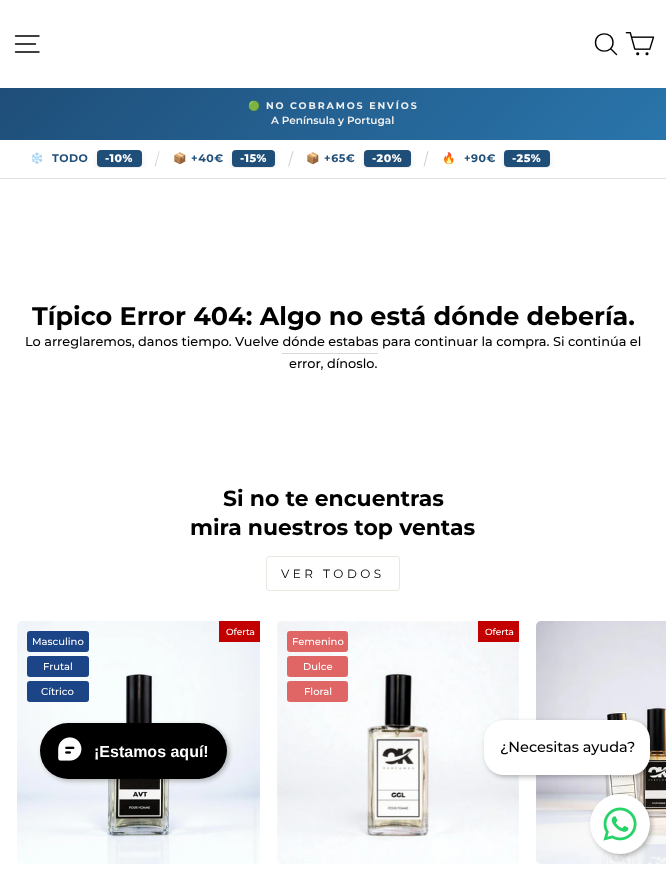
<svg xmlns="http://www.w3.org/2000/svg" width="666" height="869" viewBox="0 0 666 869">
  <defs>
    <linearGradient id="g1" gradientUnits="userSpaceOnUse" x1="486" y1="-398" x2="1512" y2="627"><stop offset="0" stop-color="#1f4e79"/><stop offset="0.5" stop-color="#2e86c1"/><stop offset="1" stop-color="#2e86c1"/></linearGradient>
    <clipPath id="clip1"><rect x="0" y="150" width="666" height="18"/></clipPath>
    <filter id="blur1" x="-50%" y="-200%" width="200%" height="500%"><feGaussianBlur stdDeviation="2.5"/></filter>
  </defs>
  <rect width="100%" height="100%" fill="#ffffff"/>
  <path d="M15.5 36H39M15.5 44H35.5M15.5 52H39" fill="none" stroke="#000000" stroke-width="1.4" stroke-linecap="round" stroke-linejoin="round"/>
  <path d="M613 42.5C613 54 595.5 54 595.5 42.5C595.5 31 613 31 613 42.5ZM616.5 54.5L610.5 48.5" fill="none" stroke="#000000" stroke-width="1.4" stroke-linecap="round" stroke-linejoin="round"/>
  <image x="625" y="32" width="30" height="24" href="img1.png"/>
  <rect x="0" y="88" width="666" height="52" fill="url(#g1)"/>
  <text x="248" y="109" font-family="Noto Color Emoji" font-size="9.5" font-weight="bold" letter-spacing="1.9" fill="#f1f1f1">🟢</text>
  <text x="266" y="109" font-family="Montserrat" font-size="9.5" font-weight="bold" letter-spacing="1.9" fill="#f1f1f1">NO COBRAMOS ENVÍOS</text>
  <text x="271" y="124" font-family="Montserrat" font-size="10.5" font-weight="600" fill="#f1f1f1">A Península y Portugal</text>
  <rect x="0" y="178" width="666" height="1" fill="#e0e0e0"/>
  <text x="30" y="162" font-family="Noto Color Emoji" font-size="11" font-weight="bold" letter-spacing="0.5" fill="#1f4e79">❄️</text>
  <text x="52" y="162" font-family="Montserrat" font-size="11" font-weight="bold" letter-spacing="0.5" fill="#1f4e79">TODO</text>
  <g clip-path="url(#clip1)">
    <rect x="97" y="152" width="45" height="17" rx="4" fill="#000000" fill-opacity="0.1" filter="url(#blur1)"/>
  </g>
  <rect x="97" y="150" width="45" height="17" rx="4" fill="#1f4e79"/>
  <text x="105" y="162" font-family="Montserrat" font-size="11" font-weight="800" letter-spacing="0.5" fill="#ffffff">-10%</text>
  <path d="M159 151L159.5 151.5L155.5 166.5H154.5Z" fill="#d0d0d0"/>
  <text x="173" y="162" font-family="Noto Color Emoji" font-size="11" font-weight="bold" letter-spacing="0.5" fill="#1f4e79">📦</text>
  <text x="191" y="162" font-family="Montserrat" font-size="11" font-weight="bold" letter-spacing="0.5" fill="#1f4e79">+40€</text>
  <g clip-path="url(#clip1)">
    <rect x="232" y="152" width="43" height="17" rx="4" fill="#000000" fill-opacity="0.1" filter="url(#blur1)"/>
  </g>
  <rect x="232" y="150" width="43" height="17" rx="4" fill="#1f4e79"/>
  <text x="240" y="162" font-family="Montserrat" font-size="11" font-weight="800" letter-spacing="0.5" fill="#ffffff">-15%</text>
  <path d="M292.5 151L293.5 151.5L289 166.5H288Z" fill="#d0d0d0"/>
  <text x="306" y="162" font-family="Noto Color Emoji" font-size="11" font-weight="bold" letter-spacing="0.5" fill="#1f4e79">📦</text>
  <text x="324" y="162" font-family="Montserrat" font-size="11" font-weight="bold" letter-spacing="0.5" fill="#1f4e79">+65€</text>
  <g clip-path="url(#clip1)">
    <rect x="364" y="152" width="47" height="17" rx="4" fill="#000000" fill-opacity="0.1" filter="url(#blur1)"/>
  </g>
  <rect x="364" y="150" width="47" height="17" rx="4" fill="#1f4e79"/>
  <text x="372" y="162" font-family="Montserrat" font-size="11" font-weight="800" letter-spacing="0.5" fill="#ffffff">-20%</text>
  <path d="M427.5 151L428.5 151.5L424.5 166.5H423.5Z" fill="#d0d0d0"/>
  <text x="442" y="162" font-family="Noto Color Emoji" font-size="11" font-weight="bold" letter-spacing="0.5" fill="#1f4e79">🔥</text>
  <text x="464" y="162" font-family="Montserrat" font-size="11" font-weight="bold" letter-spacing="0.5" fill="#1f4e79">+90€</text>
  <g clip-path="url(#clip1)">
    <rect x="504" y="152" width="46" height="17" rx="4" fill="#000000" fill-opacity="0.1" filter="url(#blur1)"/>
  </g>
  <rect x="504" y="150" width="46" height="17" rx="4" fill="#1f4e79"/>
  <text x="512" y="162" font-family="Montserrat" font-size="11" font-weight="800" letter-spacing="0.5" fill="#ffffff">-25%</text>
  <text x="32" y="325" font-family="Montserrat" font-size="25.5" font-weight="bold" fill="#000000">Típico Error 404: Algo no está dónde debería.</text>
  <text x="25" y="346" font-family="Montserrat" font-size="12.9" font-weight="500" fill="#000000">Lo arreglaremos, danos tiempo. Vuelve dónde estabas</text>
  <text x="382" y="346" font-family="Montserrat" font-size="12.9" font-weight="500" fill="#000000">para continuar la compra. Si continúa el</text>
  <rect x="282" y="353" width="96" height="1" fill="#d9d9d9"/>
  <text x="289" y="368" font-family="Montserrat" font-size="12.9" font-weight="500" fill="#000000">error, dínoslo.</text>
  <text x="223" y="506" font-family="Montserrat" font-size="21.9" font-weight="bold" fill="#000000">Si no te encuentras</text>
  <text x="190" y="535" font-family="Montserrat" font-size="21.9" font-weight="bold" fill="#000000">mira nuestros top ventas</text>
  <rect x="266.5" y="556.5" width="133" height="34" rx="2.5" fill="none" stroke="#e8e8e1"/>
  <text x="281" y="578" font-family="Montserrat" font-size="12" letter-spacing="3.5" fill="#000000">VER TODOS</text>
  <image x="17" y="621" width="243" height="243" href="img2.png"/>
  <rect x="219" y="621" width="41" height="21" fill="#c20000"/>
  <text x="226" y="635" font-family="Montserrat" font-size="9" font-weight="500" fill="#ffffff">Oferta</text>
  <rect x="27" y="631" width="62" height="21" rx="3" fill="#1c4587"/>
  <text x="32" y="645" font-family="Montserrat" font-size="10" font-weight="500" fill="#ffffff">Masculino</text>
  <rect x="27" y="656" width="62" height="21" rx="3" fill="#1c4587"/>
  <text x="43" y="670" font-family="Montserrat" font-size="10" font-weight="500" fill="#ffffff">Frutal</text>
  <rect x="27" y="681" width="62" height="21" rx="3" fill="#1c4587"/>
  <text x="41" y="695" font-family="Montserrat" font-size="10" font-weight="500" fill="#ffffff">Cítrico</text>
  <image x="277" y="621" width="242" height="243" href="img3.png"/>
  <rect x="478" y="621" width="41" height="21" fill="#c20000"/>
  <text x="485" y="635" font-family="Montserrat" font-size="9" font-weight="500" fill="#ffffff">Oferta</text>
  <rect x="287" y="631" width="61" height="21" rx="3" fill="#e06666"/>
  <text x="292" y="645" font-family="Montserrat" font-size="10" font-weight="500" fill="#ffffff">Femenino</text>
  <rect x="287" y="656" width="61" height="21" rx="3" fill="#e06666"/>
  <text x="303" y="670" font-family="Montserrat" font-size="10" font-weight="500" fill="#ffffff">Dulce</text>
  <rect x="287" y="681" width="61" height="21" rx="3" fill="#e06666"/>
  <text x="304" y="695" font-family="Montserrat" font-size="10" font-weight="500" fill="#ffffff">Floral</text>
  <image x="536" y="621" width="130" height="243" href="img4.png"/>
  <rect x="486" y="722" width="166" height="55" rx="20" fill="#000000" fill-opacity="0.27" filter="url(#blur1)"/>
  <rect x="484" y="720" width="166" height="55" rx="20" fill="#ffffff"/>
  <text x="500" y="752" font-family="Montserrat" font-size="14.5" font-weight="500" fill="#000000">¿Necesitas ayuda?</text>
  <rect x="592" y="796" width="60" height="60" rx="30" fill="#000000" fill-opacity="0.27" filter="url(#blur1)"/>
  <circle cx="620" cy="824" r="30" fill="#ffffff"/>
  <image x="603" y="807" width="34" height="34" href="img5.png"/>
  <rect x="42" y="725" width="187" height="56" rx="28" fill="#000000" fill-opacity="0.27" filter="url(#blur1)"/>
  <rect x="40" y="723" width="187" height="56" rx="28" fill="#000000"/>
  <image x="58" y="737" width="24" height="24" href="img6.png"/>
  <text x="94" y="757" font-family="Liberation Sans" font-size="16" font-weight="bold" fill="#ffffff">¡Estamos aquí!</text>
</svg>
